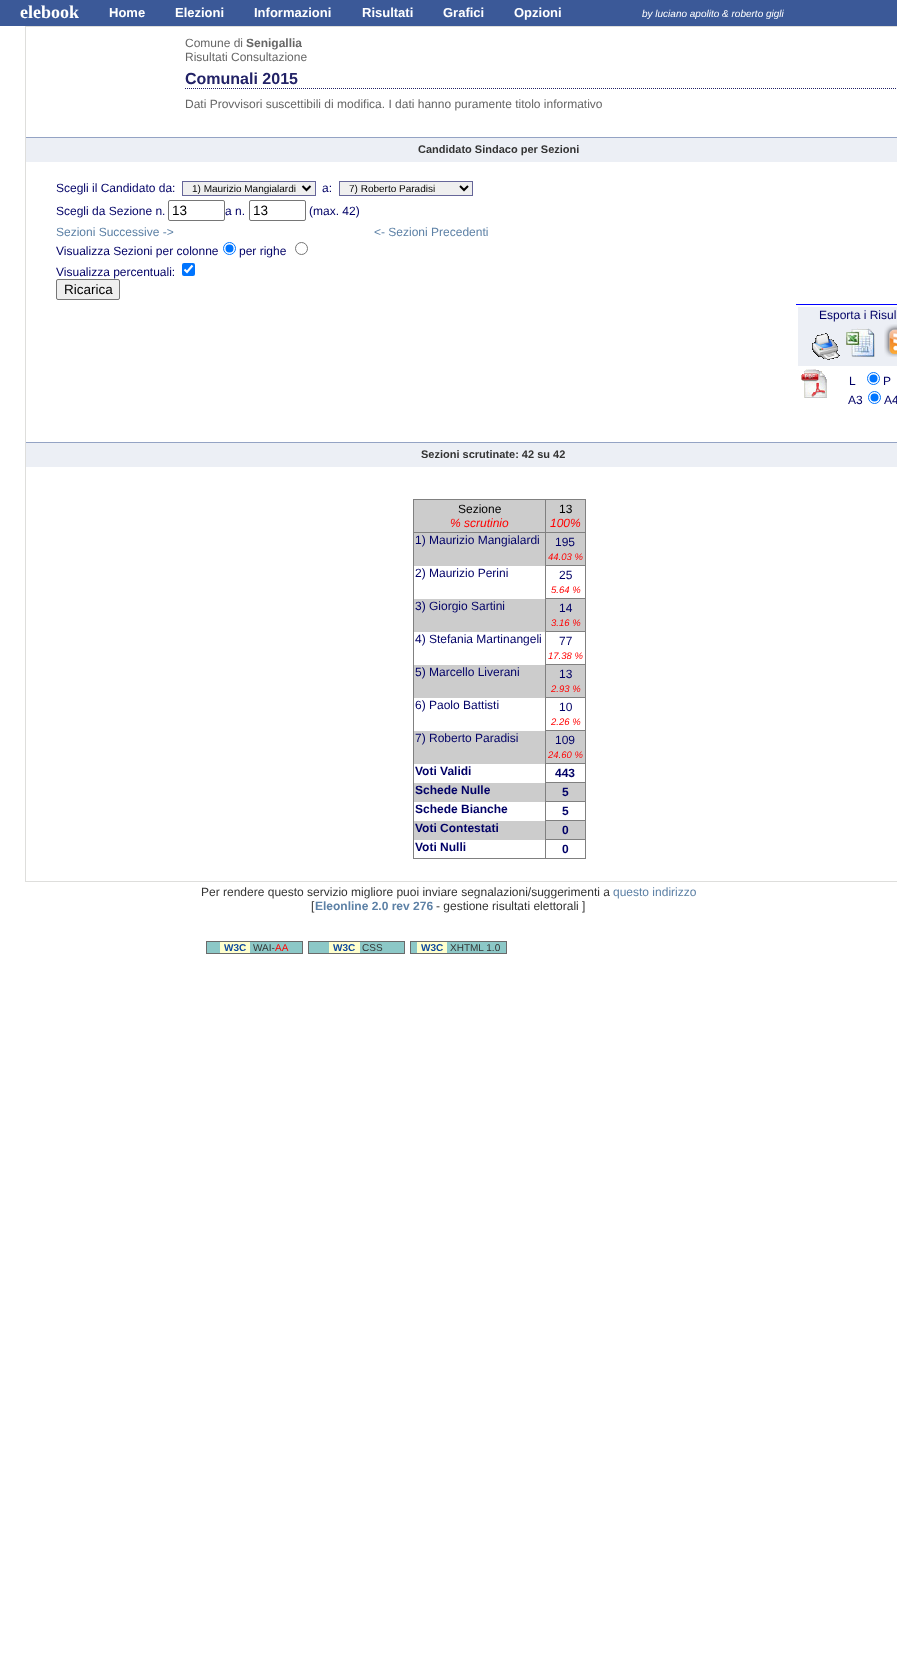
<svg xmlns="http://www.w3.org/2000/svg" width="897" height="1665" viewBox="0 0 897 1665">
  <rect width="100%" height="100%" fill="#ffffff"/>
  <rect x="0" y="0" width="897" height="26" fill="#3b5998"/>
  <text x="20" y="18" font-family="Liberation Serif" font-size="18" font-weight="bold" fill="#ffffff">elebook</text>
  <text x="109" y="17" font-family="Liberation Sans" font-size="13" font-weight="bold" fill="#ffffff">Home</text>
  <text x="175" y="17" font-family="Liberation Sans" font-size="13" font-weight="bold" fill="#ffffff">Elezioni</text>
  <text x="254" y="17" font-family="Liberation Sans" font-size="13" font-weight="bold" fill="#ffffff">Informazioni</text>
  <text x="362" y="17" font-family="Liberation Sans" font-size="13" font-weight="bold" fill="#ffffff">Risultati</text>
  <text x="443" y="17" font-family="Liberation Sans" font-size="13" font-weight="bold" fill="#ffffff">Grafici</text>
  <text x="514" y="17" font-family="Liberation Sans" font-size="13" font-weight="bold" fill="#ffffff">Opzioni</text>
  <text x="642" y="17" font-family="Liberation Sans" font-size="10" font-style="italic" fill="#ffffff">by luciano apolito &amp; roberto gigli</text>
  <rect x="25.5" y="26.5" width="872" height="855" fill="none" stroke="#dededc"/>
  <text x="185" y="47" font-family="Liberation Sans" font-size="12" fill="#666666">Comune di</text>
  <text x="246" y="47" font-family="Liberation Sans" font-size="12" font-weight="bold" fill="#666666">Senigallia</text>
  <text x="185" y="61" font-family="Liberation Sans" font-size="12" fill="#666666">Risultati Consultazione</text>
  <path d="M185 88.5H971" fill="none" stroke="#222266" stroke-dasharray="1 1"/>
  <text x="185" y="84" font-family="Liberation Sans" font-size="16" font-weight="bold" fill="#222266">Comunali 2015</text>
  <text x="185" y="108" font-family="Liberation Sans" font-size="12" fill="#666666">Dati Provvisori suscettibili di modifica. I dati hanno puramente titolo informativo</text>
  <rect x="26" y="138" width="871" height="24" fill="#eceff5"/>
  <rect x="26" y="137" width="871" height="1" fill="#94a3c4"/>
  <text x="418" y="153" font-family="Liberation Sans" font-size="11" font-weight="bold" fill="#333333">Candidato Sindaco per Sezioni</text>
  <text x="56" y="192" font-family="Liberation Sans" font-size="12" fill="#000066">Scegli il Candidato da:</text>
  <rect x="182.5" y="181.5" width="133" height="14" fill="#efefef" stroke="#666699"/>
  <path d="M302.5 186L306.5 190L310.5 186" fill="none" stroke="#000000" stroke-width="2"/>
  <text x="192" y="192" font-family="Liberation Sans" font-size="10" fill="#000000">1) Maurizio Mangialardi</text>
  <text x="322" y="192" font-family="Liberation Sans" font-size="12" fill="#000066">a:</text>
  <rect x="339.5" y="181.5" width="133" height="14" fill="#efefef" stroke="#666699"/>
  <path d="M460 186L464 190L468 186" fill="none" stroke="#000000" stroke-width="2"/>
  <text x="349" y="192" font-family="Liberation Sans" font-size="10" fill="#000000">7) Roberto Paradisi</text>
  <text x="56" y="215" font-family="Liberation Sans" font-size="12" fill="#000066">Scegli da Sezione n.</text>
  <rect x="168.5" y="200.5" width="56" height="20" rx="1.5" fill="none" stroke="#767676"/>
  <text x="172" y="215" font-family="Liberation Sans" font-size="13.5" fill="#000000">13</text>
  <text x="225" y="215" font-family="Liberation Sans" font-size="12" fill="#000066">a n.</text>
  <rect x="249.5" y="200.5" width="56" height="20" rx="1.5" fill="none" stroke="#767676"/>
  <text x="253" y="215" font-family="Liberation Sans" font-size="13.5" fill="#000000">13</text>
  <text x="309" y="215" font-family="Liberation Sans" font-size="12" fill="#000066">(max. 42)</text>
  <text x="56" y="236" font-family="Liberation Sans" font-size="12" fill="#5d81a6">Sezioni Successive -&gt;</text>
  <text x="374" y="236" font-family="Liberation Sans" font-size="12" fill="#5d81a6">&lt;- Sezioni Precedenti</text>
  <text x="56" y="255" font-family="Liberation Sans" font-size="12" fill="#000066">Visualizza Sezioni per colonne</text>
  <circle cx="229.5" cy="248.5" r="6" fill="none" stroke="#0075ff"/>
  <circle cx="229.5" cy="248.5" r="4" fill="#0075ff"/>
  <text x="239" y="255" font-family="Liberation Sans" font-size="12" fill="#000066">per righe</text>
  <circle cx="301.5" cy="248.5" r="6" fill="none" stroke="#767676"/>
  <text x="56" y="276" font-family="Liberation Sans" font-size="12" fill="#000066">Visualizza percentuali:</text>
  <rect x="182" y="263" width="13" height="13" rx="2" fill="#0075ff"/>
  <path d="M184.5 269.5L187 272L192.5 265.5" fill="none" stroke="#ffffff" stroke-width="2.1"/>
  <rect x="56.5" y="279.5" width="63" height="20" rx="1.5" fill="#efefef" stroke="#767676"/>
  <text x="64" y="294" font-family="Liberation Sans" font-size="13.5" fill="#000000">Ricarica</text>
  <rect x="796" y="304" width="101" height="1" fill="#0000ff"/>
  <rect x="798" y="307" width="99" height="59" fill="#eceff5"/>
  <text x="819" y="319" font-family="Liberation Sans" font-size="12" fill="#000066">Esporta i Risul</text>
  <image x="812" y="333" width="28" height="27" href="img1.png"/>
  <image x="846" y="328" width="29" height="29" href="img2.png"/>
  <image x="884" y="324" width="13" height="33" href="img3.png"/>
  <image x="801" y="369" width="26" height="29" href="img4.png"/>
  <text x="849" y="385" font-family="Liberation Sans" font-size="12" fill="#000066">L</text>
  <circle cx="873.5" cy="378.5" r="6" fill="none" stroke="#0075ff"/>
  <circle cx="873.5" cy="378.5" r="4" fill="#0075ff"/>
  <text x="883" y="385" font-family="Liberation Sans" font-size="12" fill="#000066">P</text>
  <text x="848" y="404" font-family="Liberation Sans" font-size="12" fill="#000066">A3</text>
  <circle cx="874.5" cy="397.5" r="6" fill="none" stroke="#0075ff"/>
  <circle cx="874.5" cy="397.5" r="4" fill="#0075ff"/>
  <text x="884" y="404" font-family="Liberation Sans" font-size="12" fill="#000066">A4</text>
  <rect x="26" y="443" width="871" height="24" fill="#eceff5"/>
  <rect x="26" y="442" width="871" height="1" fill="#94a3c4"/>
  <text x="421" y="458" font-family="Liberation Sans" font-size="11" font-weight="bold" fill="#333333">Sezioni scrutinate: 42 su 42</text>
  <rect x="413" y="499" width="173" height="1" fill="#808080"/>
  <rect x="585" y="499" width="1" height="360" fill="#808080"/>
  <rect x="413" y="858" width="173" height="1" fill="#808080"/>
  <rect x="413" y="499" width="1" height="360" fill="#808080"/>
  <rect x="414" y="500" width="171" height="32" fill="#cccccc"/>
  <rect x="545" y="532" width="41" height="1" fill="#808080"/>
  <rect x="414" y="533" width="171" height="33" fill="#cccccc"/>
  <rect x="545" y="565" width="41" height="1" fill="#808080"/>
  <rect x="545" y="598" width="41" height="1" fill="#808080"/>
  <rect x="414" y="599" width="171" height="33" fill="#cccccc"/>
  <rect x="545" y="631" width="41" height="1" fill="#808080"/>
  <rect x="545" y="664" width="41" height="1" fill="#808080"/>
  <rect x="414" y="665" width="171" height="33" fill="#cccccc"/>
  <rect x="545" y="697" width="41" height="1" fill="#808080"/>
  <rect x="545" y="730" width="41" height="1" fill="#808080"/>
  <rect x="414" y="731" width="171" height="33" fill="#cccccc"/>
  <rect x="545" y="763" width="41" height="1" fill="#808080"/>
  <rect x="545" y="782" width="41" height="1" fill="#808080"/>
  <rect x="414" y="783" width="171" height="19" fill="#cccccc"/>
  <rect x="545" y="801" width="41" height="1" fill="#808080"/>
  <rect x="545" y="820" width="41" height="1" fill="#808080"/>
  <rect x="414" y="821" width="171" height="19" fill="#cccccc"/>
  <rect x="545" y="839" width="41" height="1" fill="#808080"/>
  <rect x="545" y="839" width="1" height="20" fill="#808080"/>
  <rect x="545" y="820" width="1" height="20" fill="#808080"/>
  <rect x="545" y="801" width="1" height="20" fill="#808080"/>
  <rect x="545" y="782" width="1" height="20" fill="#808080"/>
  <rect x="545" y="763" width="1" height="20" fill="#808080"/>
  <rect x="545" y="730" width="1" height="34" fill="#808080"/>
  <rect x="545" y="697" width="1" height="34" fill="#808080"/>
  <rect x="545" y="664" width="1" height="34" fill="#808080"/>
  <rect x="545" y="631" width="1" height="34" fill="#808080"/>
  <rect x="545" y="598" width="1" height="34" fill="#808080"/>
  <rect x="545" y="565" width="1" height="34" fill="#808080"/>
  <rect x="545" y="499" width="1" height="67" fill="#808080"/>
  <rect x="413" y="532" width="133" height="1" fill="#808080"/>
  <text x="458" y="513" font-family="Liberation Sans" font-size="12" fill="#000000">Sezione</text>
  <text x="450" y="527" font-family="Liberation Sans" font-size="12" font-style="italic" fill="#ff0000">% scrutinio</text>
  <text x="559" y="513" font-family="Liberation Sans" font-size="12" fill="#000000">13</text>
  <text x="550" y="527" font-family="Liberation Sans" font-size="12" font-style="italic" fill="#ff0000">100%</text>
  <text x="415" y="544" font-family="Liberation Sans" font-size="12" fill="#000066">1) Maurizio Mangialardi</text>
  <text x="555" y="546" font-family="Liberation Sans" font-size="12" fill="#000066">195</text>
  <text x="548" y="560" font-family="Liberation Sans" font-size="9.5" font-style="italic" fill="#ff0000">44.03 %</text>
  <text x="415" y="577" font-family="Liberation Sans" font-size="12" fill="#000066">2) Maurizio Perini</text>
  <text x="559" y="579" font-family="Liberation Sans" font-size="12" fill="#000066">25</text>
  <text x="551" y="593" font-family="Liberation Sans" font-size="9.5" font-style="italic" fill="#ff0000">5.64 %</text>
  <text x="415" y="610" font-family="Liberation Sans" font-size="12" fill="#000066">3) Giorgio Sartini</text>
  <text x="559" y="612" font-family="Liberation Sans" font-size="12" fill="#000066">14</text>
  <text x="551" y="626" font-family="Liberation Sans" font-size="9.5" font-style="italic" fill="#ff0000">3.16 %</text>
  <text x="415" y="643" font-family="Liberation Sans" font-size="12" fill="#000066">4) Stefania Martinangeli</text>
  <text x="559" y="645" font-family="Liberation Sans" font-size="12" fill="#000066">77</text>
  <text x="548" y="659" font-family="Liberation Sans" font-size="9.5" font-style="italic" fill="#ff0000">17.38 %</text>
  <text x="415" y="676" font-family="Liberation Sans" font-size="12" fill="#000066">5) Marcello Liverani</text>
  <text x="559" y="678" font-family="Liberation Sans" font-size="12" fill="#000066">13</text>
  <text x="551" y="692" font-family="Liberation Sans" font-size="9.5" font-style="italic" fill="#ff0000">2.93 %</text>
  <text x="415" y="709" font-family="Liberation Sans" font-size="12" fill="#000066">6) Paolo Battisti</text>
  <text x="559" y="711" font-family="Liberation Sans" font-size="12" fill="#000066">10</text>
  <text x="551" y="725" font-family="Liberation Sans" font-size="9.5" font-style="italic" fill="#ff0000">2.26 %</text>
  <text x="415" y="742" font-family="Liberation Sans" font-size="12" fill="#000066">7) Roberto Paradisi</text>
  <text x="555" y="744" font-family="Liberation Sans" font-size="12" fill="#000066">109</text>
  <text x="548" y="758" font-family="Liberation Sans" font-size="9.5" font-style="italic" fill="#ff0000">24.60 %</text>
  <text x="415" y="775" font-family="Liberation Sans" font-size="12" font-weight="bold" fill="#000066">Voti Validi</text>
  <text x="555" y="777" font-family="Liberation Sans" font-size="12" font-weight="bold" fill="#000066">443</text>
  <text x="415" y="794" font-family="Liberation Sans" font-size="12" font-weight="bold" fill="#000066">Schede Nulle</text>
  <text x="562" y="796" font-family="Liberation Sans" font-size="12" font-weight="bold" fill="#000066">5</text>
  <text x="415" y="813" font-family="Liberation Sans" font-size="12" font-weight="bold" fill="#000066">Schede Bianche</text>
  <text x="562" y="815" font-family="Liberation Sans" font-size="12" font-weight="bold" fill="#000066">5</text>
  <text x="415" y="832" font-family="Liberation Sans" font-size="12" font-weight="bold" fill="#000066">Voti Contestati</text>
  <text x="562" y="834" font-family="Liberation Sans" font-size="12" font-weight="bold" fill="#000066">0</text>
  <text x="415" y="851" font-family="Liberation Sans" font-size="12" font-weight="bold" fill="#000066">Voti Nulli</text>
  <text x="562" y="853" font-family="Liberation Sans" font-size="12" font-weight="bold" fill="#000066">0</text>
  <text x="201" y="896" font-family="Liberation Sans" font-size="12" fill="#333333">Per rendere questo servizio migliore puoi inviare segnalazioni/suggerimenti a</text>
  <text x="613" y="896" font-family="Liberation Sans" font-size="12" fill="#5d81a6">questo indirizzo</text>
  <text x="311" y="910" font-family="Liberation Sans" font-size="12" fill="#333333">[</text>
  <text x="315" y="910" font-family="Liberation Sans" font-size="12" font-weight="bold" fill="#5d81a6">Eleonline 2.0 rev 276</text>
  <text x="436" y="910" font-family="Liberation Sans" font-size="12" fill="#333333">- gestione risultati elettorali ]</text>
  <rect x="206.5" y="941.5" width="96" height="12" fill="none" stroke="#6a6a6a"/>
  <rect x="207" y="942" width="95" height="11" fill="#8cc8c7"/>
  <rect x="220" y="942" width="30" height="11" fill="#ffffcc"/>
  <text x="224" y="951" font-family="Liberation Sans" font-size="10" font-weight="bold" fill="#0c479d">W3C</text>
  <text x="253" y="951" font-family="Liberation Sans" font-size="10" fill="#333333">WAI-</text>
  <text x="275" y="951" font-family="Liberation Sans" font-size="10" fill="#ff0000">AA</text>
  <rect x="308.5" y="941.5" width="96" height="12" fill="none" stroke="#6a6a6a"/>
  <rect x="309" y="942" width="95" height="11" fill="#8cc8c7"/>
  <rect x="329" y="942" width="31" height="11" fill="#ffffcc"/>
  <text x="333" y="951" font-family="Liberation Sans" font-size="10" font-weight="bold" fill="#0c479d">W3C</text>
  <text x="362" y="951" font-family="Liberation Sans" font-size="10" fill="#333333">CSS</text>
  <rect x="410.5" y="941.5" width="96" height="12" fill="none" stroke="#6a6a6a"/>
  <rect x="411" y="942" width="95" height="11" fill="#8cc8c7"/>
  <rect x="417" y="942" width="30" height="11" fill="#ffffcc"/>
  <text x="421" y="951" font-family="Liberation Sans" font-size="10" font-weight="bold" fill="#0c479d">W3C</text>
  <text x="450" y="951" font-family="Liberation Sans" font-size="10" fill="#333333">XHTML 1.0</text>
</svg>
